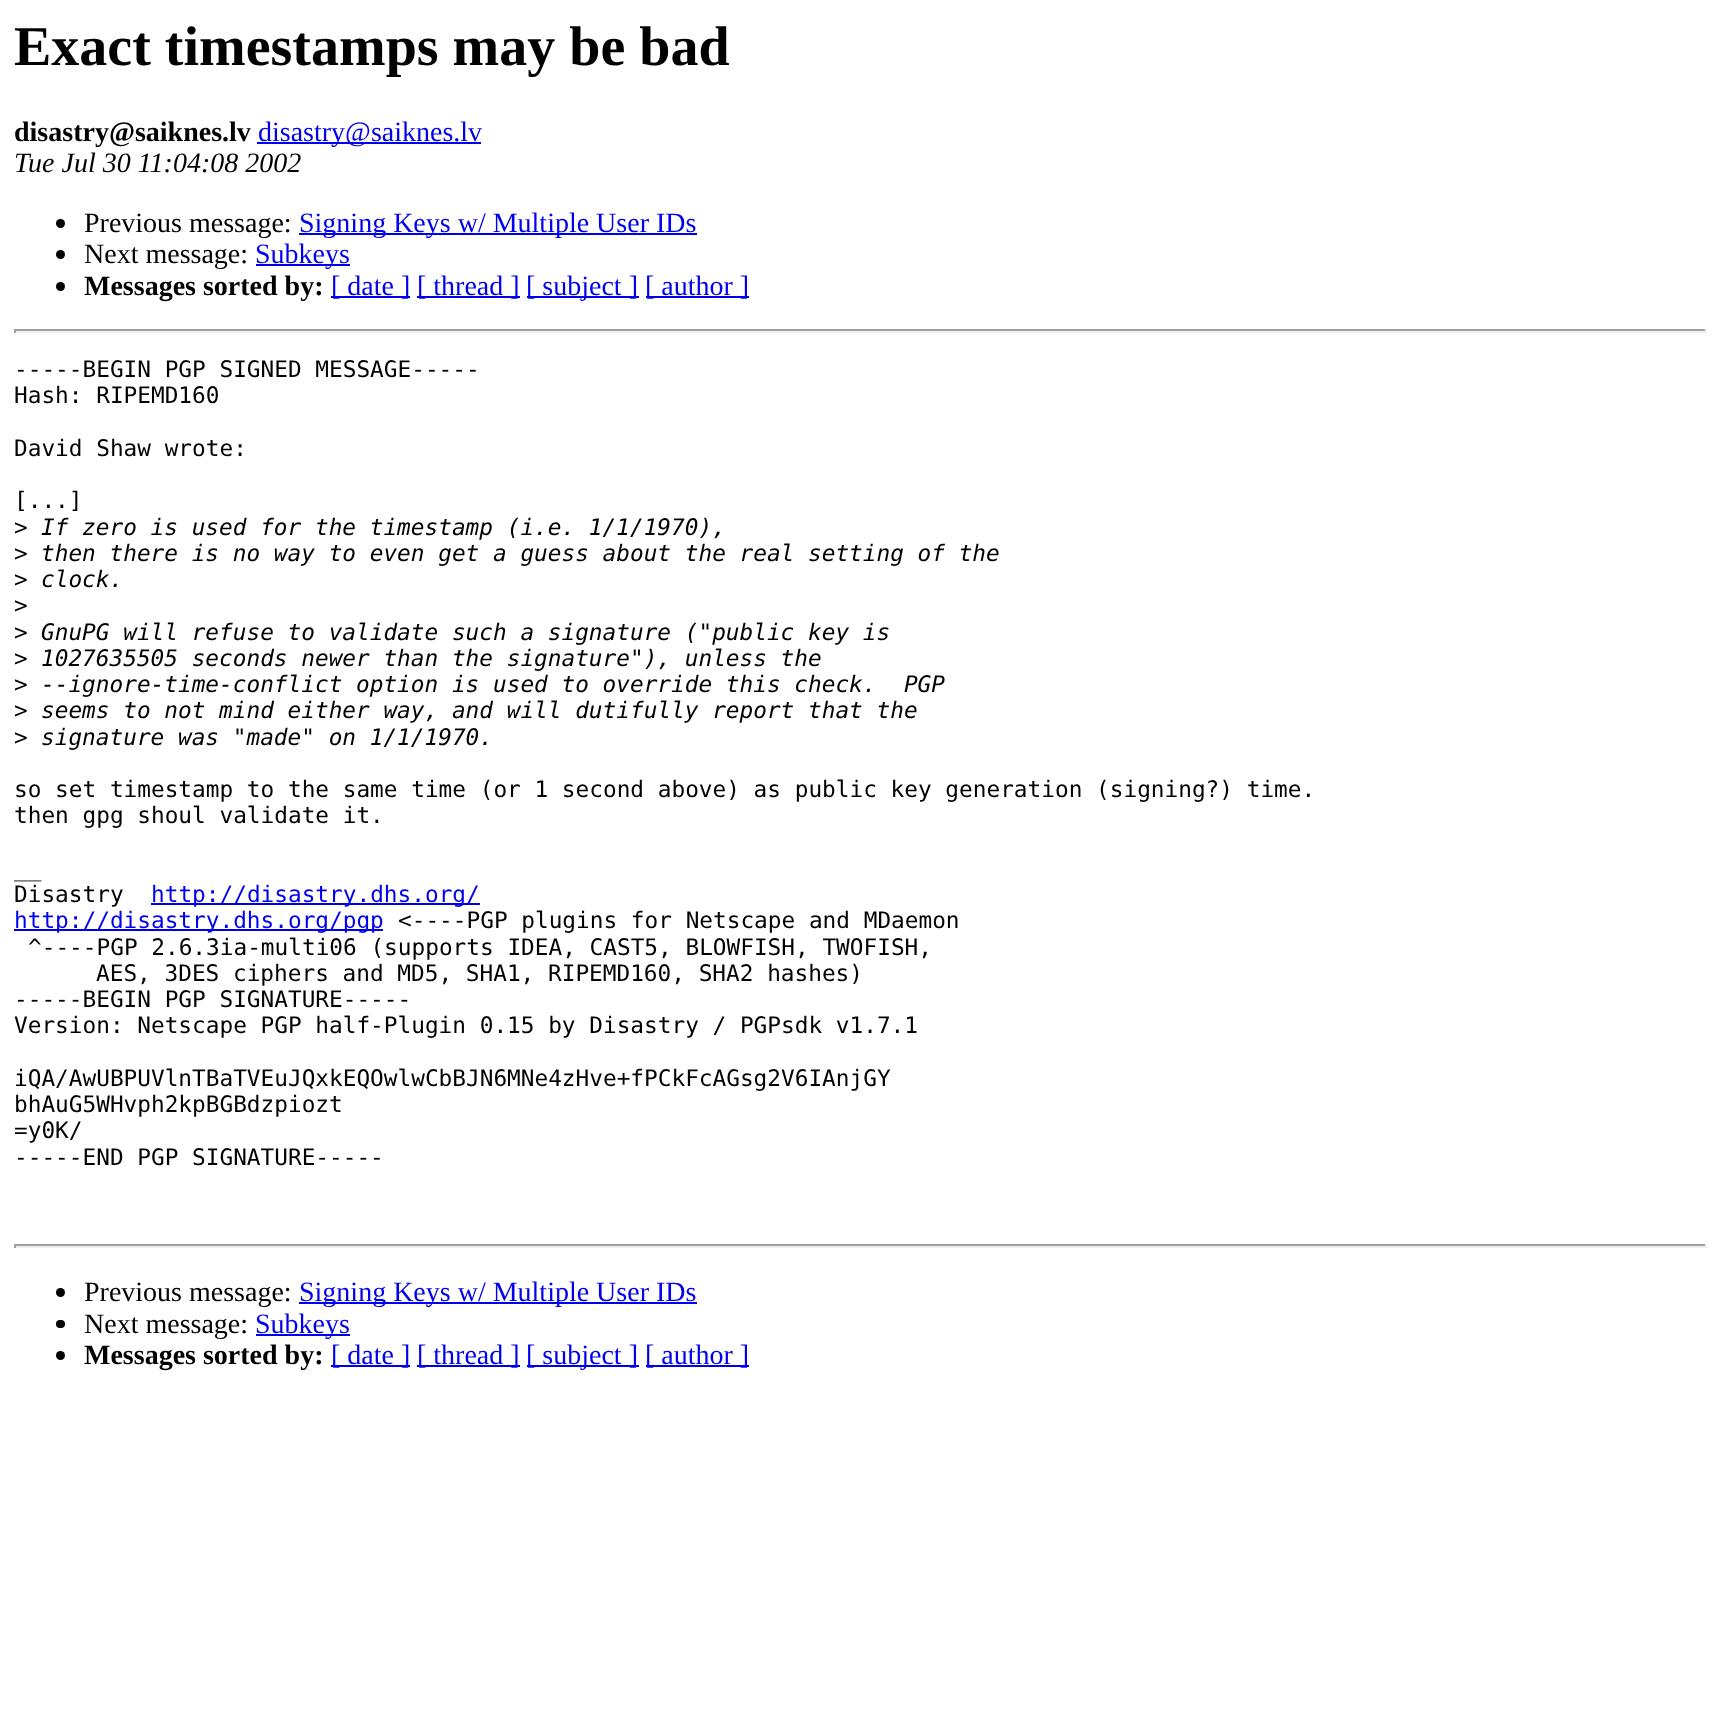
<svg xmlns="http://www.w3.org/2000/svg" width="1719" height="1730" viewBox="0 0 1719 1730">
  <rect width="100%" height="100%" fill="#ffffff"/>
  <text x="14" y="65" font-family="Liberation Serif" font-size="56" font-weight="bold" fill="#000000">Exact timestamps may be bad</text>
  <text x="14" y="141" font-family="Liberation Serif" font-size="28" font-weight="bold" fill="#000000">disastry@saiknes.lv</text>
  <rect x="257" y="142" width="224" height="2" fill="#0000ee"/>
  <text x="258" y="141" font-family="Liberation Serif" font-size="28" fill="#0000ee">disastry@saiknes.lv</text>
  <text x="14" y="172" font-family="Liberation Serif" font-size="28" font-style="italic" fill="#000000">Tue Jul 30 11:04:08 2002</text>
  <circle cx="60.5" cy="223.5" r="4.5" fill="#000000"/>
  <text x="84" y="232" font-family="Liberation Serif" font-size="28" fill="#000000">Previous message:</text>
  <rect x="299" y="233" width="398" height="2" fill="#0000ee"/>
  <text x="299" y="232" font-family="Liberation Serif" font-size="28" fill="#0000ee">Signing Keys w/ Multiple User IDs</text>
  <circle cx="60.5" cy="254.5" r="4.5" fill="#000000"/>
  <text x="84" y="263" font-family="Liberation Serif" font-size="28" fill="#000000">Next message:</text>
  <rect x="256" y="264" width="94" height="2" fill="#0000ee"/>
  <text x="255" y="263" font-family="Liberation Serif" font-size="28" fill="#0000ee">Subkeys</text>
  <circle cx="60.5" cy="286.5" r="4.5" fill="#000000"/>
  <text x="84" y="295" font-family="Liberation Serif" font-size="28" font-weight="bold" fill="#000000">Messages sorted by:</text>
  <rect x="331" y="296" width="79" height="2" fill="#0000ee"/>
  <text x="331" y="295" font-family="Liberation Serif" font-size="28" fill="#0000ee">[ date ]</text>
  <rect x="417" y="296" width="103" height="2" fill="#0000ee"/>
  <text x="417" y="295" font-family="Liberation Serif" font-size="28" fill="#0000ee">[ thread ]</text>
  <rect x="527" y="296" width="112" height="2" fill="#0000ee"/>
  <text x="526" y="295" font-family="Liberation Serif" font-size="28" fill="#0000ee">[ subject ]</text>
  <rect x="646" y="296" width="103" height="2" fill="#0000ee"/>
  <text x="645" y="295" font-family="Liberation Serif" font-size="28" fill="#0000ee">[ author ]</text>
  <rect x="14" y="329" width="1692" height="2" fill="#9f9f9f"/>
  <rect x="1705" y="329" width="2" height="4" fill="#eeeeee"/>
  <rect x="14" y="331" width="1692" height="2" fill="#eeeeee"/>
  <rect x="14" y="329" width="2" height="4" fill="#9f9f9f"/>
  <text x="14" y="377" font-family="DejaVu Sans Mono" font-size="22.75" fill="#000000">-----BEGIN PGP SIGNED MESSAGE-----</text>
  <text x="14" y="403" font-family="DejaVu Sans Mono" font-size="22.75" fill="#000000">Hash: RIPEMD160</text>
  <text x="14" y="456" font-family="DejaVu Sans Mono" font-size="22.75" fill="#000000">David Shaw wrote:</text>
  <text x="14" y="508" font-family="DejaVu Sans Mono" font-size="22.75" fill="#000000">[...]</text>
  <text x="14" y="535" font-family="DejaVu Sans Mono" font-size="22.75" fill="#000000">&gt;</text>
  <text x="41" y="535" font-family="DejaVu Sans Mono" font-size="22.75" font-style="italic" fill="#000000">If zero is used for the timestamp (i.e. 1/1/1970),</text>
  <text x="14" y="561" font-family="DejaVu Sans Mono" font-size="22.75" fill="#000000">&gt;</text>
  <text x="41" y="561" font-family="DejaVu Sans Mono" font-size="22.75" font-style="italic" fill="#000000">then there is no way to even get a guess about the real setting of the</text>
  <text x="14" y="587" font-family="DejaVu Sans Mono" font-size="22.75" fill="#000000">&gt;</text>
  <text x="41" y="587" font-family="DejaVu Sans Mono" font-size="22.75" font-style="italic" fill="#000000">clock.</text>
  <text x="14" y="613" font-family="DejaVu Sans Mono" font-size="22.75" fill="#000000">&gt;</text>
  <text x="14" y="640" font-family="DejaVu Sans Mono" font-size="22.75" fill="#000000">&gt;</text>
  <text x="41" y="640" font-family="DejaVu Sans Mono" font-size="22.75" font-style="italic" fill="#000000">GnuPG will refuse to validate such a signature ("public key is</text>
  <text x="14" y="666" font-family="DejaVu Sans Mono" font-size="22.75" fill="#000000">&gt;</text>
  <text x="41" y="666" font-family="DejaVu Sans Mono" font-size="22.75" font-style="italic" fill="#000000">1027635505 seconds newer than the signature"), unless the</text>
  <text x="14" y="692" font-family="DejaVu Sans Mono" font-size="22.75" fill="#000000">&gt;</text>
  <text x="41" y="692" font-family="DejaVu Sans Mono" font-size="22.75" font-style="italic" fill="#000000" xml:space="preserve">--ignore-time-conflict option is used to override this check.  PGP</text>
  <text x="14" y="718" font-family="DejaVu Sans Mono" font-size="22.75" fill="#000000">&gt;</text>
  <text x="41" y="718" font-family="DejaVu Sans Mono" font-size="22.75" font-style="italic" fill="#000000">seems to not mind either way, and will dutifully report that the</text>
  <text x="14" y="745" font-family="DejaVu Sans Mono" font-size="22.75" fill="#000000">&gt;</text>
  <text x="41" y="745" font-family="DejaVu Sans Mono" font-size="22.75" font-style="italic" fill="#000000">signature was "made" on 1/1/1970.</text>
  <text x="14" y="797" font-family="DejaVu Sans Mono" font-size="22.75" fill="#000000">so set timestamp to the same time (or 1 second above) as public key generation (signing?) time.</text>
  <text x="14" y="823" font-family="DejaVu Sans Mono" font-size="22.75" fill="#000000">then gpg shoul validate it.</text>
  <text x="14" y="876" font-family="DejaVu Sans Mono" font-size="22.75" fill="#000000">__</text>
  <text x="14" y="902" font-family="DejaVu Sans Mono" font-size="22.75" fill="#000000">Disastry</text>
  <rect x="151" y="903" width="329" height="2" fill="#0000ee"/>
  <text x="151" y="902" font-family="DejaVu Sans Mono" font-size="22.75" fill="#0000ee">http://disastry.dhs.org/</text>
  <rect x="14" y="929" width="369" height="2" fill="#0000ee"/>
  <text x="14" y="928" font-family="DejaVu Sans Mono" font-size="22.75" fill="#0000ee">http://disastry.dhs.org/pgp</text>
  <text x="398" y="928" font-family="DejaVu Sans Mono" font-size="22.75" fill="#000000">&lt;----PGP plugins for Netscape and MDaemon</text>
  <text x="28" y="955" font-family="DejaVu Sans Mono" font-size="22.75" fill="#000000">^----PGP 2.6.3ia-multi06 (supports IDEA, CAST5, BLOWFISH, TWOFISH,</text>
  <text x="96" y="981" font-family="DejaVu Sans Mono" font-size="22.75" fill="#000000">AES, 3DES ciphers and MD5, SHA1, RIPEMD160, SHA2 hashes)</text>
  <text x="14" y="1007" font-family="DejaVu Sans Mono" font-size="22.75" fill="#000000">-----BEGIN PGP SIGNATURE-----</text>
  <text x="14" y="1033" font-family="DejaVu Sans Mono" font-size="22.75" fill="#000000">Version: Netscape PGP half-Plugin 0.15 by Disastry / PGPsdk v1.7.1</text>
  <text x="14" y="1086" font-family="DejaVu Sans Mono" font-size="22.75" fill="#000000">iQA/AwUBPUVlnTBaTVEuJQxkEQOwlwCbBJN6MNe4zHve+fPCkFcAGsg2V6IAnjGY</text>
  <text x="14" y="1112" font-family="DejaVu Sans Mono" font-size="22.75" fill="#000000">bhAuG5WHvph2kpBGBdzpiozt</text>
  <text x="14" y="1138" font-family="DejaVu Sans Mono" font-size="22.75" fill="#000000">=y0K/</text>
  <text x="14" y="1165" font-family="DejaVu Sans Mono" font-size="22.75" fill="#000000">-----END PGP SIGNATURE-----</text>
  <rect x="14" y="1244" width="1692" height="2" fill="#9f9f9f"/>
  <rect x="1705" y="1244" width="2" height="4" fill="#eeeeee"/>
  <rect x="14" y="1246" width="1692" height="2" fill="#eeeeee"/>
  <rect x="14" y="1244" width="2" height="4" fill="#9f9f9f"/>
  <circle cx="60.5" cy="1292.5" r="4.5" fill="#000000"/>
  <text x="84" y="1301" font-family="Liberation Serif" font-size="28" fill="#000000">Previous message:</text>
  <rect x="299" y="1302" width="398" height="2" fill="#0000ee"/>
  <text x="299" y="1301" font-family="Liberation Serif" font-size="28" fill="#0000ee">Signing Keys w/ Multiple User IDs</text>
  <rect x="56" y="1320" width="9" height="8" rx="4" fill="#000000"/>
  <text x="84" y="1333" font-family="Liberation Serif" font-size="28" fill="#000000">Next message:</text>
  <rect x="256" y="1334" width="94" height="2" fill="#0000ee"/>
  <text x="255" y="1333" font-family="Liberation Serif" font-size="28" fill="#0000ee">Subkeys</text>
  <circle cx="60.5" cy="1355.5" r="4.5" fill="#000000"/>
  <text x="84" y="1364" font-family="Liberation Serif" font-size="28" font-weight="bold" fill="#000000">Messages sorted by:</text>
  <rect x="331" y="1365" width="79" height="2" fill="#0000ee"/>
  <text x="331" y="1364" font-family="Liberation Serif" font-size="28" fill="#0000ee">[ date ]</text>
  <rect x="417" y="1365" width="103" height="2" fill="#0000ee"/>
  <text x="417" y="1364" font-family="Liberation Serif" font-size="28" fill="#0000ee">[ thread ]</text>
  <rect x="527" y="1365" width="112" height="2" fill="#0000ee"/>
  <text x="526" y="1364" font-family="Liberation Serif" font-size="28" fill="#0000ee">[ subject ]</text>
  <rect x="646" y="1365" width="103" height="2" fill="#0000ee"/>
  <text x="645" y="1364" font-family="Liberation Serif" font-size="28" fill="#0000ee">[ author ]</text>
</svg>
